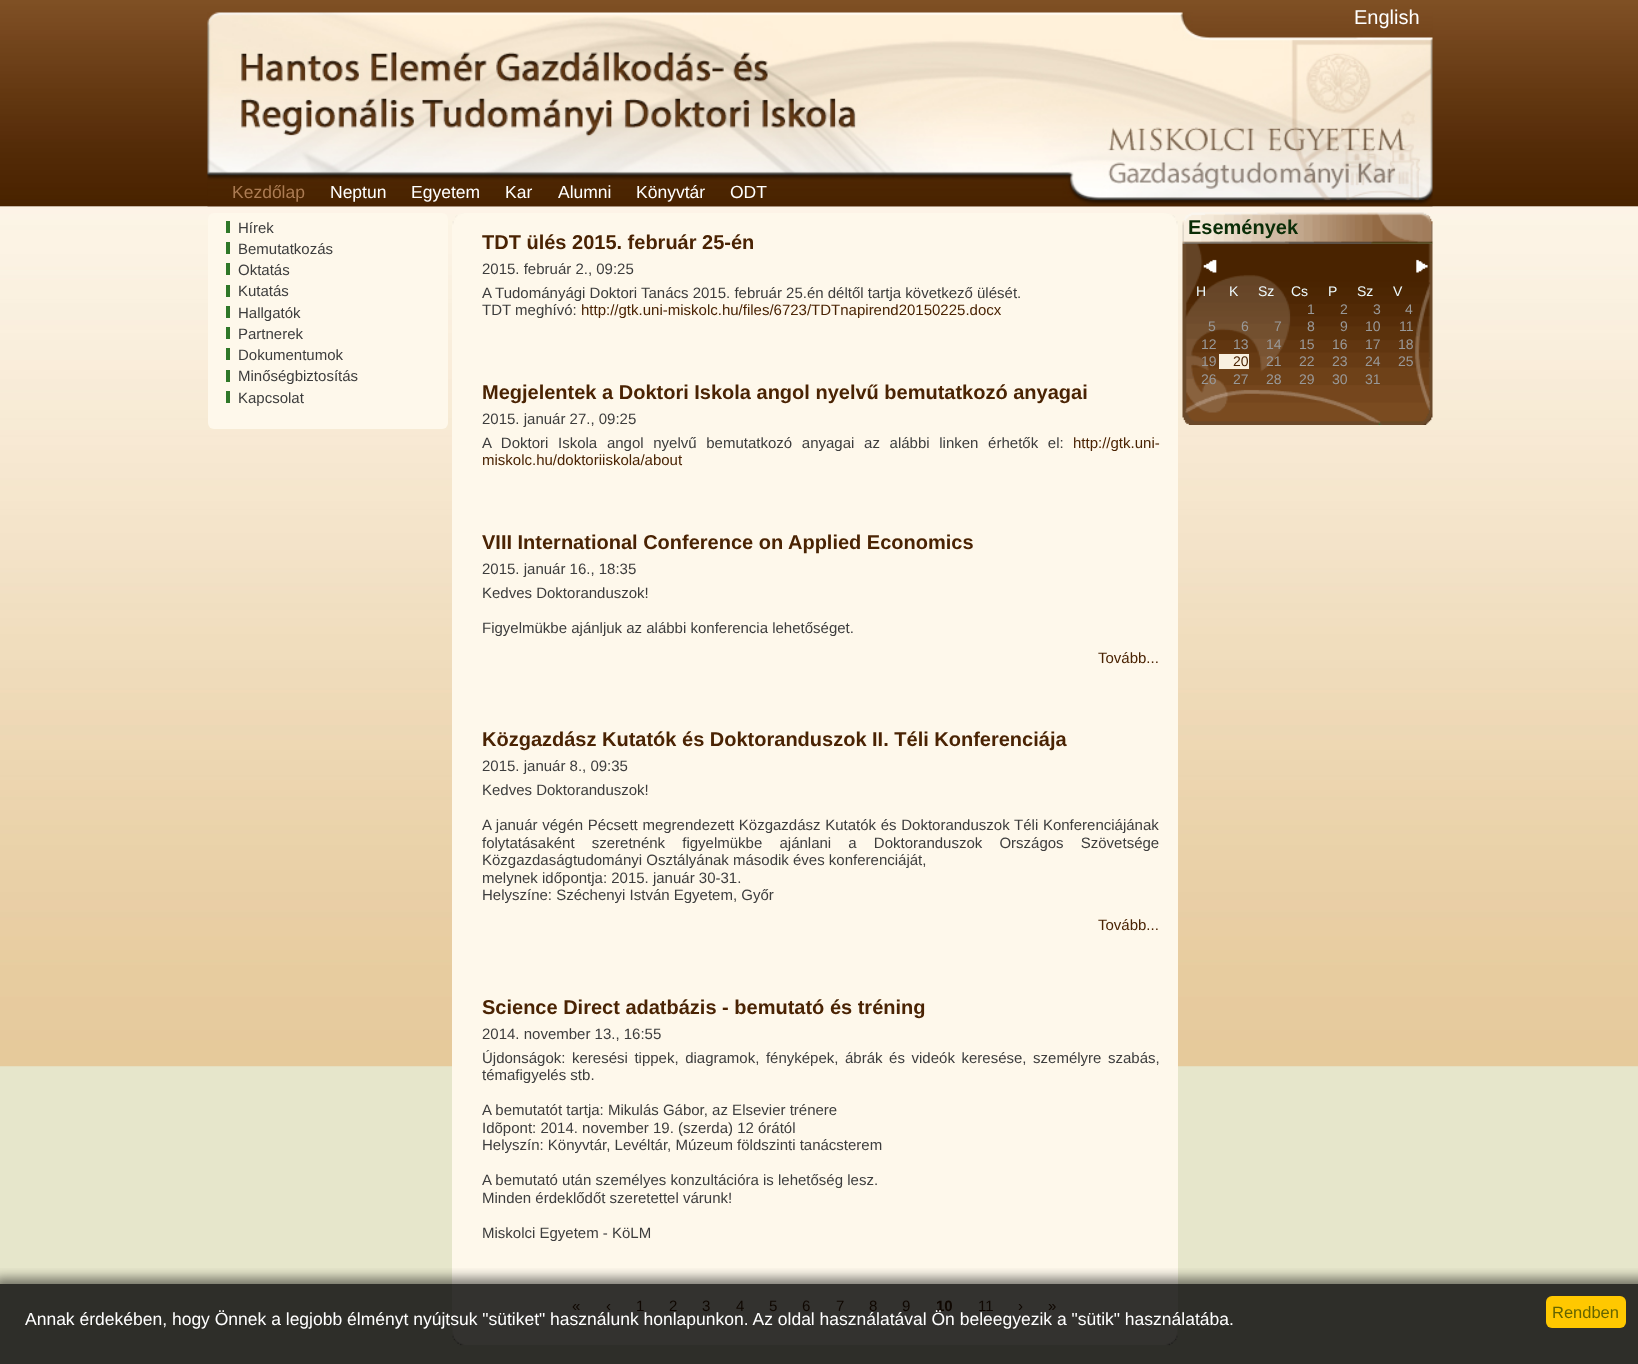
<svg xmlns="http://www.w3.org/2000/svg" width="1638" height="1364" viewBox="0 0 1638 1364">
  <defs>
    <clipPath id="clip1"><rect x="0" y="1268" width="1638" height="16"/></clipPath>
    <filter id="blur1" x="-50%" y="-200%" width="200%" height="500%"><feGaussianBlur stdDeviation="6"/></filter>
  </defs>
  <rect width="100%" height="100%" fill="#e6e6cb"/>
  <rect x="0" y="1284" width="1638" height="80" fill="#2e2e29"/>
  <image x="0" y="0" width="1638" height="1067" href="img1.png"/>
  <image x="207" y="12" width="1226" height="195" href="img2.png"/>
  <text x="1354" y="24" font-family="Liberation Sans" font-size="20" fill="#ffffff">English</text>
  <text x="232" y="198" font-family="Liberation Sans" font-size="17.5" fill="#ab7b52">Kezdőlap</text>
  <text x="330" y="198" font-family="Liberation Sans" font-size="17.5" fill="#ffffff">Neptun</text>
  <text x="411" y="198" font-family="Liberation Sans" font-size="17.5" fill="#ffffff">Egyetem</text>
  <text x="505" y="198" font-family="Liberation Sans" font-size="17.5" fill="#ffffff">Kar</text>
  <text x="558" y="198" font-family="Liberation Sans" font-size="17.5" fill="#ffffff">Alumni</text>
  <text x="636" y="198" font-family="Liberation Sans" font-size="17.5" fill="#ffffff">Könyvtár</text>
  <text x="730" y="198" font-family="Liberation Sans" font-size="17.5" fill="#ffffff">ODT</text>
  <rect x="208" y="213" width="240" height="216" rx="6" fill="#fef8eb"/>
  <rect x="226" y="221" width="4" height="12" fill="#2f7728"/>
  <text x="238" y="233" font-family="Liberation Sans" font-size="15" fill="#3d3d3d">Hírek</text>
  <rect x="226" y="242" width="4" height="12" fill="#2f7728"/>
  <text x="238" y="254" font-family="Liberation Sans" font-size="15" fill="#3d3d3d">Bemutatkozás</text>
  <rect x="226" y="263" width="4" height="12" fill="#2f7728"/>
  <text x="238" y="275" font-family="Liberation Sans" font-size="15" fill="#3d3d3d">Oktatás</text>
  <rect x="226" y="285" width="4" height="12" fill="#2f7728"/>
  <text x="238" y="296" font-family="Liberation Sans" font-size="15" fill="#3d3d3d">Kutatás</text>
  <rect x="226" y="306" width="4" height="12" fill="#2f7728"/>
  <text x="238" y="318" font-family="Liberation Sans" font-size="15" fill="#3d3d3d">Hallgatók</text>
  <rect x="226" y="327" width="4" height="12" fill="#2f7728"/>
  <text x="238" y="339" font-family="Liberation Sans" font-size="15" fill="#3d3d3d">Partnerek</text>
  <rect x="226" y="348" width="4" height="12" fill="#2f7728"/>
  <text x="238" y="360" font-family="Liberation Sans" font-size="15" fill="#3d3d3d">Dokumentumok</text>
  <rect x="226" y="370" width="4" height="12" fill="#2f7728"/>
  <text x="238" y="381" font-family="Liberation Sans" font-size="15" fill="#3d3d3d">Minőségbiztosítás</text>
  <rect x="226" y="391" width="4" height="12" fill="#2f7728"/>
  <text x="238" y="403" font-family="Liberation Sans" font-size="15" fill="#3d3d3d">Kapcsolat</text>
  <image x="452" y="213" width="726" height="12" href="img3.png"/>
  <rect x="452" y="225" width="726" height="1059" fill="#fef8eb"/>
  <rect x="452" y="1284" width="726" height="31" fill="#33322f"/>
  <text x="482" y="249" font-family="Liberation Sans" font-size="20" font-weight="bold" fill="#4a2303">TDT ülés 2015. február 25-én</text>
  <text x="482" y="274" font-family="Liberation Sans" font-size="15" fill="#3d3d3d">2015. február 2., 09:25</text>
  <text x="482" y="298" font-family="Liberation Sans" font-size="15" fill="#3d3d3d">A Tudományági Doktori Tanács 2015. február 25.én déltől tartja következő ülését.</text>
  <text x="482" y="315" font-family="Liberation Sans" font-size="15" fill="#3d3d3d">TDT meghívó:</text>
  <text x="581" y="315" font-family="Liberation Sans" font-size="15" fill="#4a2303">http://gtk.uni-miskolc.hu/files/6723/TDTnapirend20150225.docx</text>
  <text x="482" y="399" font-family="Liberation Sans" font-size="20" font-weight="bold" fill="#4a2303">Megjelentek a Doktori Iskola angol nyelvű bemutatkozó anyagai</text>
  <text x="482" y="424" font-family="Liberation Sans" font-size="15" fill="#3d3d3d">2015. január 27., 09:25</text>
  <text x="482" y="448" word-spacing="5.5" font-family="Liberation Sans" font-size="15" fill="#3d3d3d">A Doktori Iskola angol nyelvű bemutatkozó anyagai az alábbi linken érhetők el:</text>
  <text x="1073" y="448" font-family="Liberation Sans" font-size="15" fill="#4a2303">http://gtk.uni-</text>
  <text x="482" y="465" font-family="Liberation Sans" font-size="15" fill="#4a2303">miskolc.hu/doktoriiskola/about</text>
  <text x="482" y="549" font-family="Liberation Sans" font-size="20" font-weight="bold" fill="#4a2303">VIII International Conference on Applied Economics</text>
  <text x="482" y="574" font-family="Liberation Sans" font-size="15" fill="#3d3d3d">2015. január 16., 18:35</text>
  <text x="482" y="598" font-family="Liberation Sans" font-size="15" fill="#3d3d3d">Kedves Doktoranduszok!</text>
  <text x="482" y="633" font-family="Liberation Sans" font-size="15" fill="#3d3d3d">Figyelmükbe ajánljuk az alábbi konferencia lehetőséget.</text>
  <text x="1098" y="663" font-family="Liberation Sans" font-size="15" fill="#4a2303">Tovább...</text>
  <text x="482" y="746" font-family="Liberation Sans" font-size="20" font-weight="bold" fill="#4a2303">Közgazdász Kutatók és Doktoranduszok II. Téli Konferenciája</text>
  <text x="482" y="771" font-family="Liberation Sans" font-size="15" fill="#3d3d3d">2015. január 8., 09:35</text>
  <text x="482" y="795" font-family="Liberation Sans" font-size="15" fill="#3d3d3d">Kedves Doktoranduszok!</text>
  <text x="482" y="830" word-spacing="0.5" font-family="Liberation Sans" font-size="15" fill="#3d3d3d">A január végén Pécsett megrendezett Közgazdász Kutatók és Doktoranduszok Téli Konferenciájának</text>
  <text x="482" y="848" word-spacing="13" font-family="Liberation Sans" font-size="15" fill="#3d3d3d">folytatásaként szeretnénk figyelmükbe ajánlani a Doktoranduszok Országos Szövetsége</text>
  <text x="482" y="865" font-family="Liberation Sans" font-size="15" fill="#3d3d3d">Közgazdaságtudományi Osztályának második éves konferenciáját,</text>
  <text x="482" y="883" font-family="Liberation Sans" font-size="15" fill="#3d3d3d">melynek időpontja: 2015. január 30-31.</text>
  <text x="482" y="900" font-family="Liberation Sans" font-size="15" fill="#3d3d3d">Helyszíne: Széchenyi István Egyetem, Győr</text>
  <text x="1098" y="930" font-family="Liberation Sans" font-size="15" fill="#4a2303">Tovább...</text>
  <text x="482" y="1014" font-family="Liberation Sans" font-size="20" font-weight="bold" fill="#4a2303">Science Direct adatbázis - bemutató és tréning</text>
  <text x="482" y="1039" font-family="Liberation Sans" font-size="15" fill="#3d3d3d">2014. november 13., 16:55</text>
  <text x="482" y="1063" word-spacing="2.4" font-family="Liberation Sans" font-size="15" fill="#3d3d3d">Újdonságok: keresési tippek, diagramok, fényképek, ábrák és videók keresése, személyre szabás,</text>
  <text x="482" y="1080" font-family="Liberation Sans" font-size="15" fill="#3d3d3d">témafigyelés stb.</text>
  <text x="482" y="1115" font-family="Liberation Sans" font-size="15" fill="#3d3d3d">A bemutatót tartja: Mikulás Gábor, az Elsevier trénere</text>
  <text x="482" y="1133" font-family="Liberation Sans" font-size="15" fill="#3d3d3d">Idõpont: 2014. november 19. (szerda) 12 órától</text>
  <text x="482" y="1150" font-family="Liberation Sans" font-size="15" fill="#3d3d3d">Helyszín: Könyvtár, Levéltár, Múzeum földszinti tanácsterem</text>
  <text x="482" y="1185" font-family="Liberation Sans" font-size="15" fill="#3d3d3d">A bemutató után személyes konzultációra is lehetőség lesz.</text>
  <text x="482" y="1203" font-family="Liberation Sans" font-size="15" fill="#3d3d3d">Minden érdeklődőt szeretettel várunk!</text>
  <text x="482" y="1238" font-family="Liberation Sans" font-size="15" fill="#3d3d3d">Miskolci Egyetem - KöLM</text>
  <text x="572" y="1311" font-family="Liberation Sans" font-size="15" fill="#0f0701">«</text>
  <text x="606" y="1311" font-family="Liberation Sans" font-size="15" fill="#0f0701">‹</text>
  <text x="636" y="1311" font-family="Liberation Sans" font-size="15" fill="#0f0701">1</text>
  <text x="669" y="1311" font-family="Liberation Sans" font-size="15" fill="#0f0701">2</text>
  <text x="702" y="1311" font-family="Liberation Sans" font-size="15" fill="#0f0701">3</text>
  <text x="736" y="1311" font-family="Liberation Sans" font-size="15" fill="#0f0701">4</text>
  <text x="769" y="1311" font-family="Liberation Sans" font-size="15" fill="#0f0701">5</text>
  <text x="802" y="1311" font-family="Liberation Sans" font-size="15" fill="#0f0701">6</text>
  <text x="836" y="1311" font-family="Liberation Sans" font-size="15" fill="#0f0701">7</text>
  <text x="869" y="1311" font-family="Liberation Sans" font-size="15" fill="#0f0701">8</text>
  <text x="902" y="1311" font-family="Liberation Sans" font-size="15" fill="#0f0701">9</text>
  <text x="936" y="1311" font-family="Liberation Sans" font-size="15" font-weight="bold" fill="#0f0701">10</text>
  <text x="978" y="1311" font-family="Liberation Sans" font-size="15" fill="#0f0701">11</text>
  <text x="1018" y="1311" font-family="Liberation Sans" font-size="15" fill="#0f0701">›</text>
  <text x="1048" y="1311" font-family="Liberation Sans" font-size="15" fill="#0f0701">»</text>
  <image x="452" y="1315" width="726" height="31" href="img4.png"/>
  <image x="1182" y="212" width="251" height="32" href="img5.png"/>
  <text x="1188" y="234" font-family="Liberation Sans" font-size="20" font-weight="bold" fill="#0a2d07">Események</text>
  <image x="1182" y="243" width="251" height="182" href="img6.png"/>
  <image x="1203" y="259" width="14" height="14" href="img7.png"/>
  <image x="1416" y="259" width="12" height="14" href="img8.png"/>
  <text x="1196" y="296" font-family="Liberation Sans" font-size="14" fill="#eefbff">H</text>
  <text x="1229" y="296" font-family="Liberation Sans" font-size="14" fill="#eefbff">K</text>
  <text x="1258" y="296" font-family="Liberation Sans" font-size="14" fill="#eefbff">Sz</text>
  <text x="1291" y="296" font-family="Liberation Sans" font-size="14" fill="#eefbff">Cs</text>
  <text x="1328" y="296" font-family="Liberation Sans" font-size="14" fill="#eefbff">P</text>
  <text x="1357" y="296" font-family="Liberation Sans" font-size="14" fill="#eefbff">Sz</text>
  <text x="1393" y="296" font-family="Liberation Sans" font-size="14" fill="#eefbff">V</text>
  <text x="1307" y="314" font-family="Liberation Sans" font-size="14" fill="#999999">1</text>
  <text x="1340" y="314" font-family="Liberation Sans" font-size="14" fill="#999999">2</text>
  <text x="1373" y="314" font-family="Liberation Sans" font-size="14" fill="#999999">3</text>
  <text x="1405" y="314" font-family="Liberation Sans" font-size="14" fill="#999999">4</text>
  <text x="1208" y="331" font-family="Liberation Sans" font-size="14" fill="#999999">5</text>
  <text x="1241" y="331" font-family="Liberation Sans" font-size="14" fill="#999999">6</text>
  <text x="1274" y="331" font-family="Liberation Sans" font-size="14" fill="#999999">7</text>
  <text x="1307" y="331" font-family="Liberation Sans" font-size="14" fill="#999999">8</text>
  <text x="1340" y="331" font-family="Liberation Sans" font-size="14" fill="#999999">9</text>
  <text x="1365" y="331" font-family="Liberation Sans" font-size="14" fill="#999999">10</text>
  <text x="1399" y="331" font-family="Liberation Sans" font-size="14" fill="#999999">11</text>
  <text x="1201" y="349" font-family="Liberation Sans" font-size="14" fill="#999999">12</text>
  <text x="1233" y="349" font-family="Liberation Sans" font-size="14" fill="#999999">13</text>
  <text x="1266" y="349" font-family="Liberation Sans" font-size="14" fill="#999999">14</text>
  <text x="1299" y="349" font-family="Liberation Sans" font-size="14" fill="#999999">15</text>
  <text x="1332" y="349" font-family="Liberation Sans" font-size="14" fill="#999999">16</text>
  <text x="1365" y="349" font-family="Liberation Sans" font-size="14" fill="#999999">17</text>
  <text x="1398" y="349" font-family="Liberation Sans" font-size="14" fill="#999999">18</text>
  <text x="1201" y="366" font-family="Liberation Sans" font-size="14" fill="#999999">19</text>
  <rect x="1219" y="354" width="30" height="15" fill="#f9f0e0"/>
  <text x="1233" y="366" font-family="Liberation Sans" font-size="14" fill="#4a2303">20</text>
  <text x="1266" y="366" font-family="Liberation Sans" font-size="14" fill="#999999">21</text>
  <text x="1299" y="366" font-family="Liberation Sans" font-size="14" fill="#999999">22</text>
  <text x="1332" y="366" font-family="Liberation Sans" font-size="14" fill="#999999">23</text>
  <text x="1365" y="366" font-family="Liberation Sans" font-size="14" fill="#999999">24</text>
  <text x="1398" y="366" font-family="Liberation Sans" font-size="14" fill="#999999">25</text>
  <text x="1201" y="384" font-family="Liberation Sans" font-size="14" fill="#999999">26</text>
  <text x="1233" y="384" font-family="Liberation Sans" font-size="14" fill="#999999">27</text>
  <text x="1266" y="384" font-family="Liberation Sans" font-size="14" fill="#999999">28</text>
  <text x="1299" y="384" font-family="Liberation Sans" font-size="14" fill="#999999">29</text>
  <text x="1332" y="384" font-family="Liberation Sans" font-size="14" fill="#999999">30</text>
  <text x="1365" y="384" font-family="Liberation Sans" font-size="14" fill="#999999">31</text>
  <g clip-path="url(#clip1)">
    <rect x="-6" y="1278" width="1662" height="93" fill="#000000" fill-opacity="0.5" filter="url(#blur1)"/>
  </g>
  <text x="25" y="1325" font-family="Liberation Sans" font-size="17.5" fill="#ffffff">Annak érdekében, hogy Önnek a legjobb élményt nyújtsuk "sütiket" használunk honlapunkon. Az oldal használatával Ön beleegyezik a "sütik" használatába.</text>
  <rect x="1546" y="1296" width="80" height="32" rx="6" fill="#ffc800"/>
  <text x="1552" y="1318" font-family="Liberation Sans" font-size="16.5" fill="#646400">Rendben</text>
</svg>
